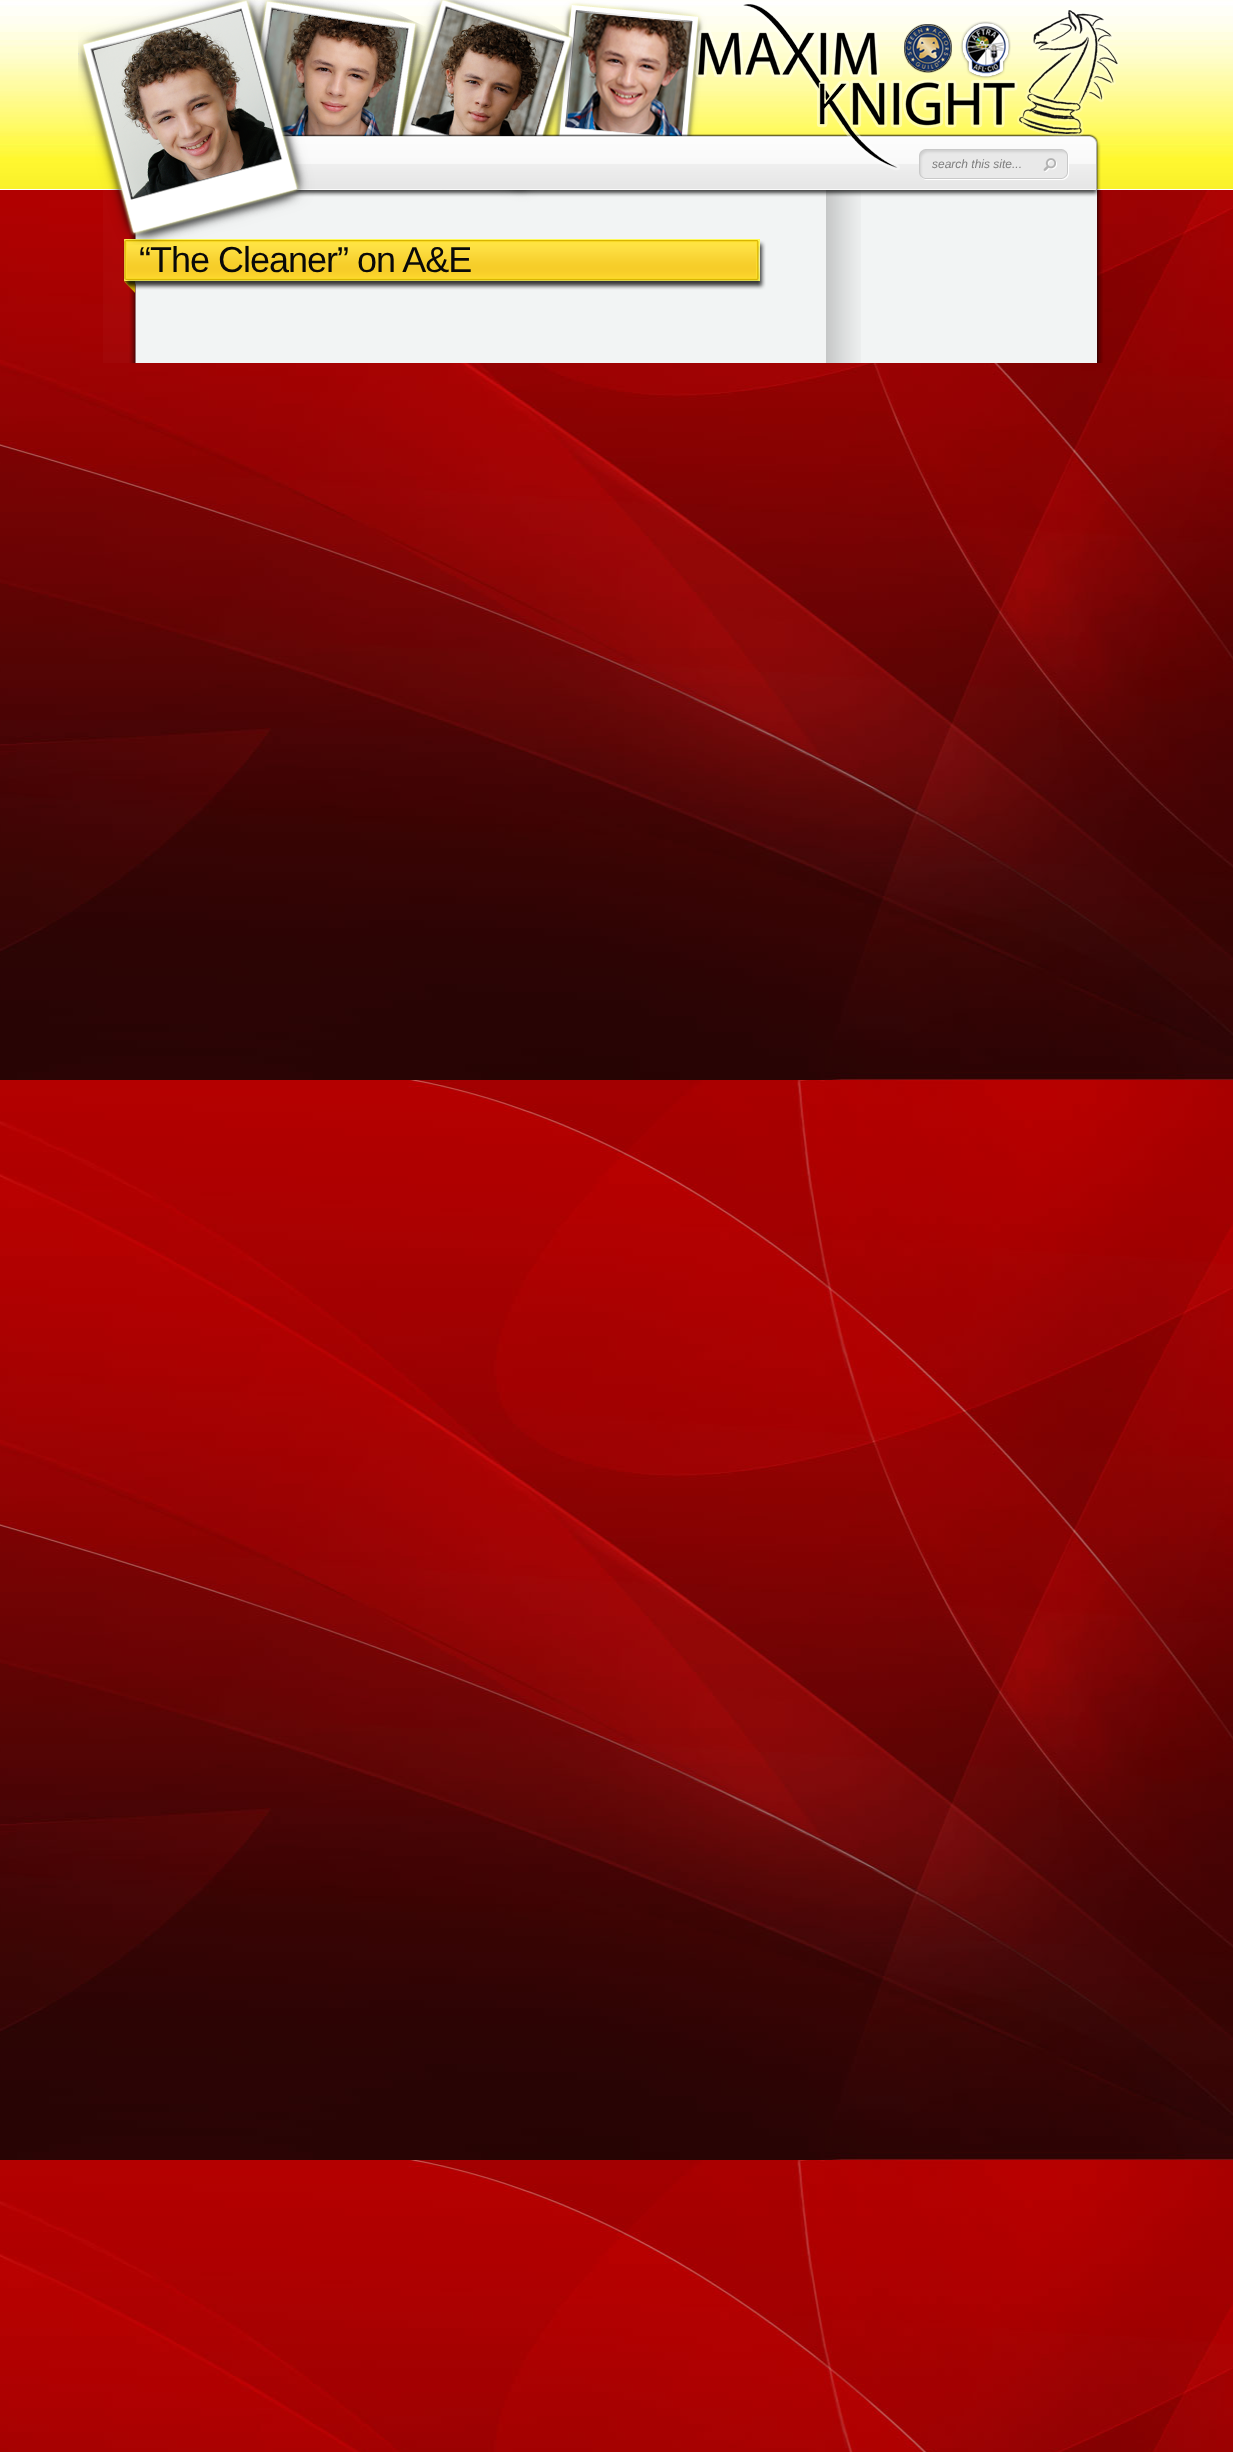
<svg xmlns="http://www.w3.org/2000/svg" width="1233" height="2452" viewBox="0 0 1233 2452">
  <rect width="100%" height="100%" fill="#ffffff"/>
  <image x="0" y="190" width="1233" height="2262" href="img1.png"/>
  <image x="0" y="0" width="1233" height="189" href="img2.png"/>
  <image x="78" y="0" width="1042" height="136" href="img3.png"/>
  <image x="103" y="190" width="33" height="173" href="img7.png"/>
  <image x="129" y="190" width="974" height="173" href="img8.png"/>
  <image x="826" y="190" width="35" height="173" href="img9.png"/>
  <image x="123" y="239" width="643" height="54" href="img10.png"/>
  <image x="95" y="136" width="1006" height="109" href="img4.png"/>
  <image x="919" y="149" width="150" height="31" href="img5.png"/>
  <text x="932" y="168" font-family="Liberation Sans" font-size="12" font-style="italic" fill="#7d7d7d">search this site...</text>
  <image x="1043" y="158" width="14" height="14" href="img6.png"/>
  <text x="139" y="272" font-family="Liberation Sans" font-size="36" letter-spacing="-1" fill="#090909">“The Cleaner” on A&amp;E</text>
</svg>
